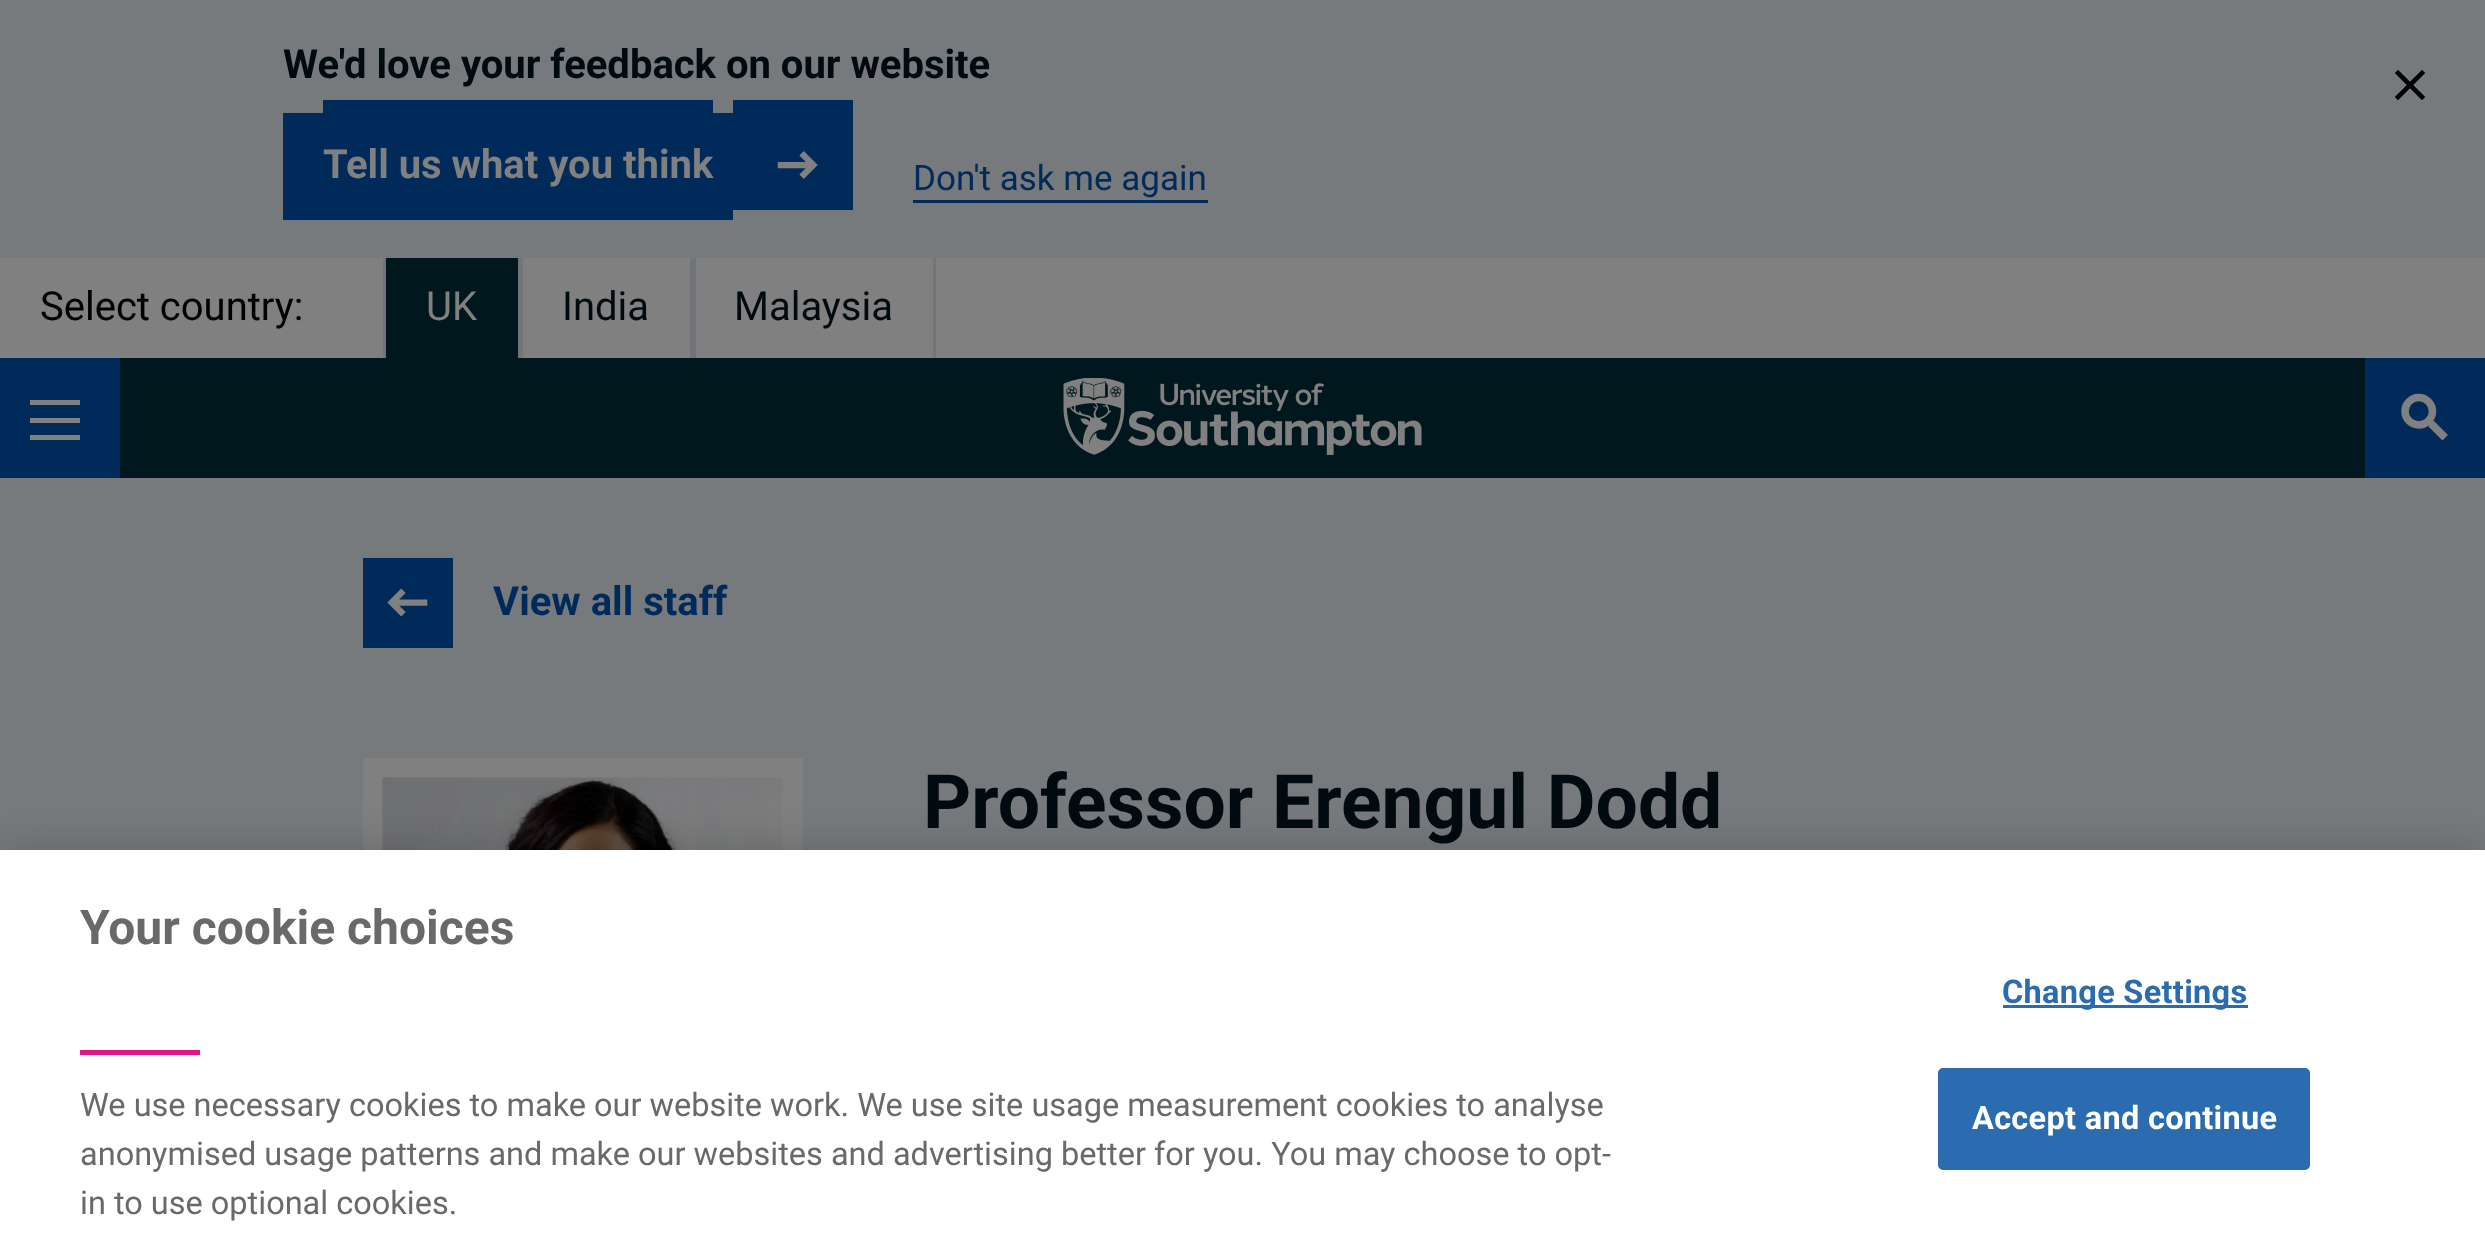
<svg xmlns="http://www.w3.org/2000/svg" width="2485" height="1252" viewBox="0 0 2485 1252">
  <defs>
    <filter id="blur1" x="-50%" y="-200%" width="200%" height="500%"><feGaussianBlur stdDeviation="22.5"/></filter>
  </defs>
  <rect width="100%" height="100%" fill="#808080"/>
  <rect x="0" y="0" width="2485" height="258" fill="#777a7d"/>
  <text x="283" y="78" font-family="Roboto" font-size="40" font-weight="bold" fill="#000a0f">We'd love your feedback on our website</text>
  <rect x="283" y="113" width="450" height="107" fill="#002a5a"/>
  <rect x="323" y="100" width="390" height="13" fill="#002a5a"/>
  <rect x="733" y="100" width="120" height="110" fill="#002a5a"/>
  <text x="323" y="178" font-family="Roboto" font-size="40" font-weight="bold" fill="#808080">Tell us what you think</text>
  <image x="777" y="151" width="41" height="28" href="img1.png"/>
  <text x="913" y="190" font-family="Roboto" font-size="35" fill="#002a5a">Don't ask me again</text>
  <rect x="913" y="200" width="295" height="3" fill="#002a5a"/>
  <image x="2395" y="70" width="30" height="30" href="img2.png"/>
  <text x="40" y="320" font-family="Roboto" font-size="40" fill="#000000">Select country:</text>
  <rect x="386" y="258" width="132" height="100" fill="#00171e"/>
  <rect x="518" y="258" width="5" height="100" fill="#717478"/>
  <rect x="383" y="258" width="3" height="100" fill="#717478"/>
  <text x="426" y="320" font-family="Roboto" font-size="40" fill="#808080">UK</text>
  <rect x="690" y="258" width="6" height="100" fill="#717478"/>
  <text x="562" y="320" font-family="Roboto" font-size="40" fill="#000a0f">India</text>
  <rect x="933" y="258" width="3" height="100" fill="#717478"/>
  <text x="734" y="320" font-family="Roboto" font-size="40" fill="#000a0f">Malaysia</text>
  <rect x="120" y="358" width="2245" height="120" fill="#00171e"/>
  <rect x="0" y="358" width="120" height="120" fill="#002a5a"/>
  <rect x="30" y="400" width="50" height="5" fill="#808080"/>
  <rect x="30" y="418" width="50" height="5" fill="#808080"/>
  <rect x="30" y="435" width="50" height="5" fill="#808080"/>
  <image x="1063" y="378" width="359" height="77" href="img3.png"/>
  <rect x="2365" y="358" width="120" height="120" fill="#002a5a"/>
  <image x="2401" y="393" width="47" height="48" href="img4.png"/>
  <rect x="0" y="478" width="2485" height="372" fill="#777a7d"/>
  <rect x="363" y="558" width="90" height="90" fill="#002a5a"/>
  <image x="387" y="588" width="41" height="29" href="img5.png"/>
  <text x="493" y="615" font-family="Roboto" font-size="40" font-weight="bold" fill="#002a5a">View all staff</text>
  <rect x="363" y="758" width="440" height="92" fill="#808080"/>
  <image x="382" y="777" width="401" height="73" href="img6.png"/>
  <text x="923" y="828" font-family="Roboto" font-size="75" font-weight="bold" fill="#000a0f">Professor Erengul Dodd</text>
  <rect x="0" y="850" width="2485" height="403" fill="#000000" fill-opacity="0.2" filter="url(#blur1)"/>
  <rect x="0" y="850" width="2485" height="402" fill="#ffffff"/>
  <text x="80" y="944" font-family="Roboto" font-size="48" font-weight="bold" fill="#696969">Your cookie choices</text>
  <rect x="80" y="1050" width="120" height="5" fill="#dd1886"/>
  <text x="80" y="1116" font-family="Roboto" font-size="32.5" fill="#696969">We use necessary cookies to make our website work. We use site usage measurement cookies to analyse</text>
  <text x="80" y="1165" font-family="Roboto" font-size="32.5" fill="#696969">anonymised usage patterns and make our websites and advertising better for you. You may choose to opt-</text>
  <text x="80" y="1214" font-family="Roboto" font-size="32.5" fill="#696969">in to use optional cookies.</text>
  <rect x="2003" y="1005" width="245" height="3" fill="#2b6cb1"/>
  <text x="2002" y="1003" font-family="Roboto" font-size="32.5" font-weight="bold" letter-spacing="0.3" fill="#2b6cb1">Change Settings</text>
  <rect x="1939.5" y="1069.5" width="369" height="99" rx="3.5" fill="#2b6cb1" stroke="#2b6cb1" stroke-width="3"/>
  <text x="1972" y="1129" font-family="Roboto" font-size="32.5" font-weight="bold" letter-spacing="0.3" fill="#ffffff">Accept and continue</text>
</svg>
